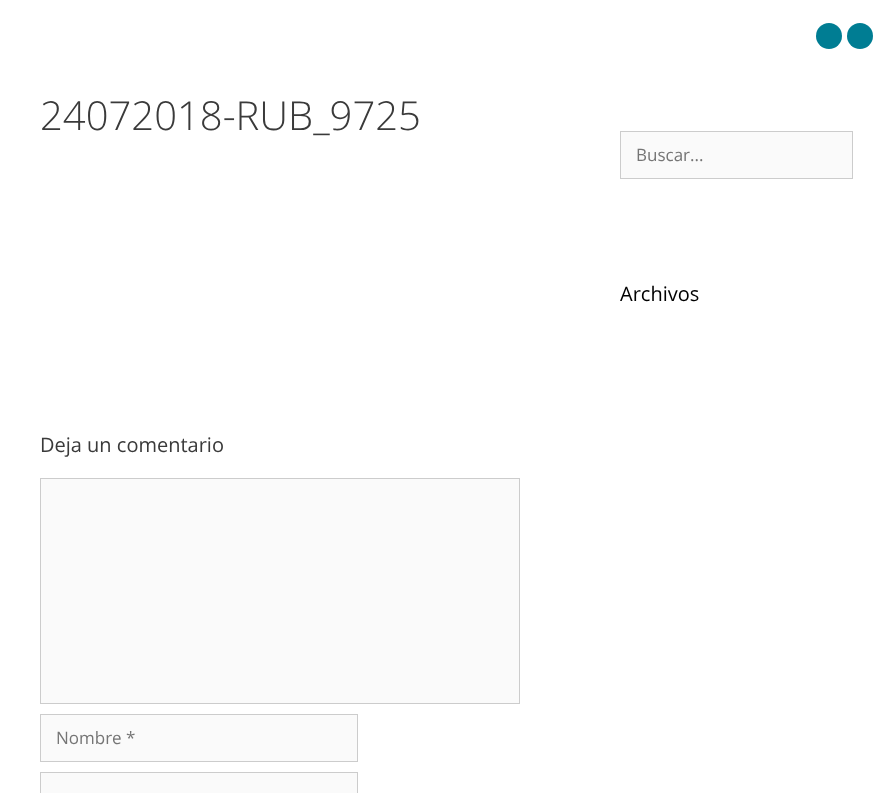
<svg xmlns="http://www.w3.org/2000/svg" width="893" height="793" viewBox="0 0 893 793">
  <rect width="100%" height="100%" fill="#ffffff"/>
  <circle cx="829" cy="36" r="13" fill="#007d93"/>
  <circle cx="860" cy="36" r="13" fill="#007d93"/>
  <text x="40" y="130" font-family="Open Sans" font-size="40" font-weight="300" fill="#3a3a3a">24072018-RUB_9725</text>
  <text x="40" y="452" font-family="Open Sans" font-size="20" fill="#3a3a3a">Deja un comentario</text>
  <rect x="40.5" y="478.5" width="479" height="225" fill="#fafafa" stroke="#cccccc"/>
  <rect x="40.5" y="714.5" width="317" height="47" fill="#fafafa" stroke="#cccccc"/>
  <text x="56" y="744" font-family="Open Sans" font-size="17" fill="#757575">Nombre *</text>
  <rect x="40.5" y="772.5" width="317" height="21" fill="#fafafa" stroke="#cccccc"/>
  <rect x="620.5" y="131.5" width="232" height="47" fill="#fafafa" stroke="#cccccc"/>
  <text x="636" y="161" font-family="Open Sans" font-size="17" fill="#757575">Buscar...</text>
  <text x="620" y="301" font-family="Open Sans" font-size="20" fill="#000000">Archivos</text>
</svg>
